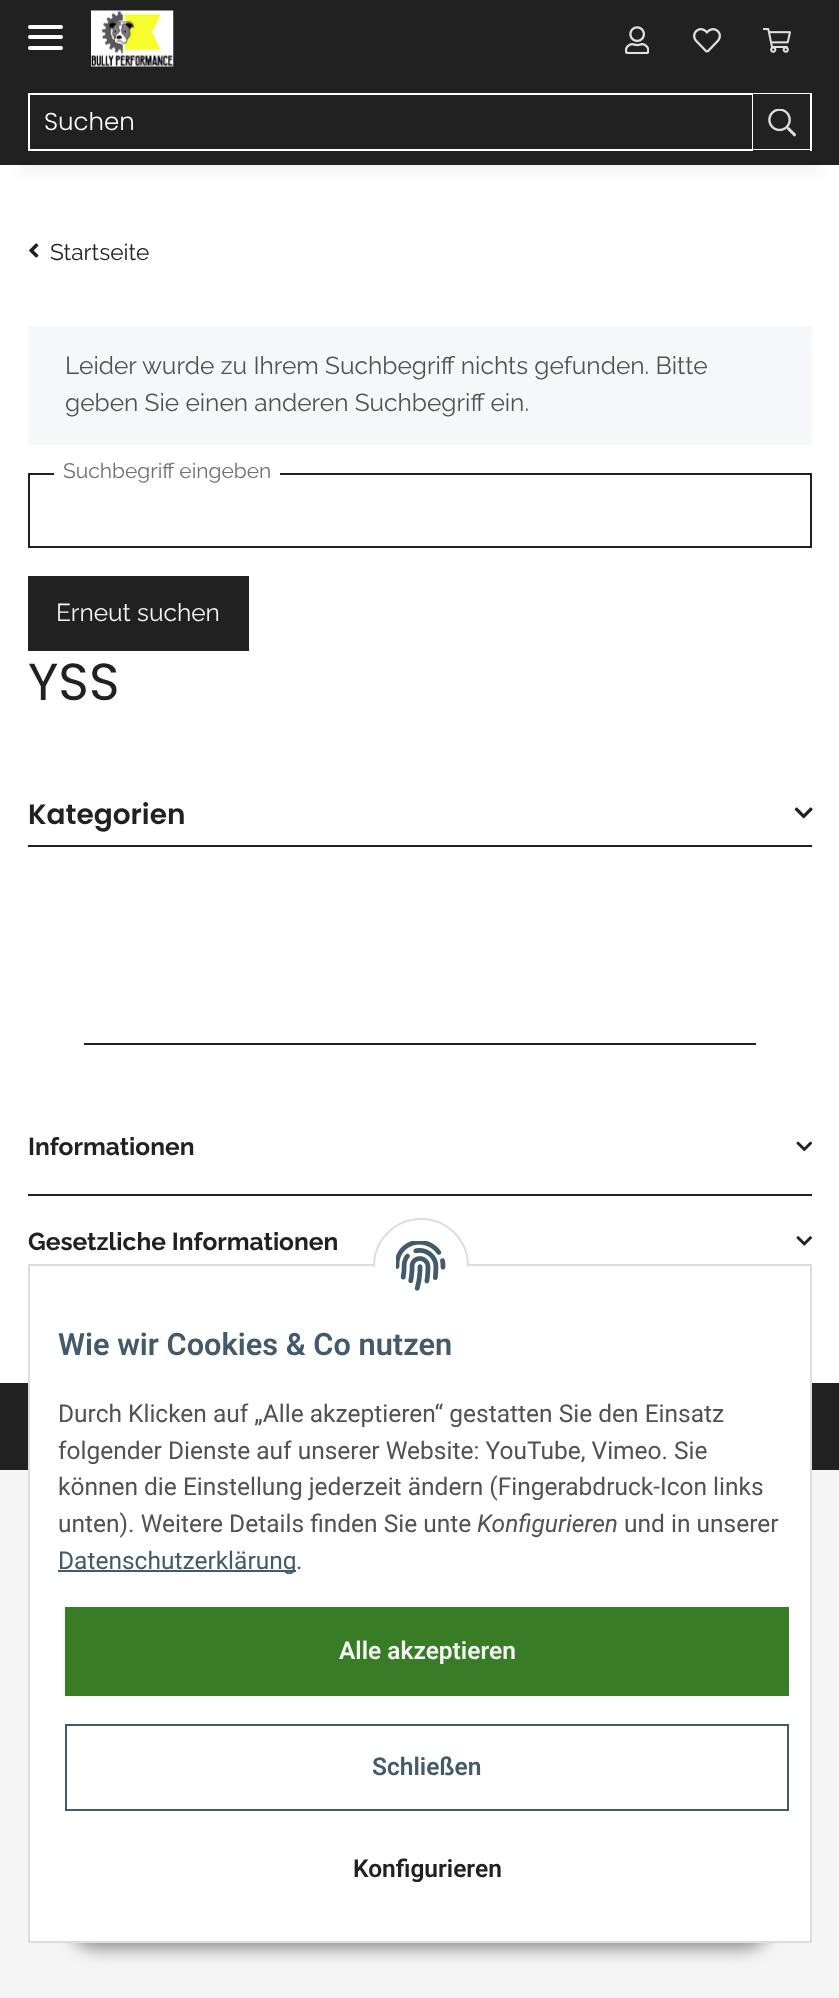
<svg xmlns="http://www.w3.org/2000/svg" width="839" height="1998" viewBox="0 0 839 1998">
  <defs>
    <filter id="blur1" x="-50%" y="-200%" width="200%" height="500%"><feGaussianBlur stdDeviation="8"/></filter>
    <filter id="blur2" x="-50%" y="-200%" width="200%" height="500%"><feGaussianBlur stdDeviation="9"/></filter>
  </defs>
  <rect width="100%" height="100%" fill="#f5f5f5"/>
  <rect x="0" y="165" width="839" height="1218" fill="#ffffff"/>
  <rect x="21" y="49" width="798" height="123" fill="#000000" fill-opacity="0.06" filter="url(#blur1)"/>
  <rect x="0" y="0" width="839" height="165" fill="#212121"/>
  <rect x="28" y="35" width="35" height="4" rx="2" fill="#ffffff"/>
  <rect x="28" y="25" width="35" height="4" rx="2" fill="#ffffff"/>
  <rect x="28" y="46" width="35" height="4" rx="2" fill="#ffffff"/>
  <image x="91" y="10" width="83" height="57" href="img1.png"/>
  <image x="625" y="26" width="24" height="28" href="img2.png"/>
  <image x="693" y="28" width="28" height="25" href="img3.png"/>
  <image x="763" y="28" width="28" height="25" href="img4.png"/>
  <rect x="29" y="94" width="724" height="56" fill="none" stroke="#ffffff" stroke-width="2"/>
  <text x="44" y="130" font-family="Poppins" font-size="24.5" font-weight="300" fill="#ffffff">Suchen</text>
  <rect x="753" y="93" width="1" height="58" fill="#212121"/>
  <path d="M752 93H812L810 94H754Z" fill="#ffffff"/>
  <rect x="810" y="93" width="2" height="58" fill="#ffffff"/>
  <path d="M812 150H752L754 149H810Z" fill="#ffffff"/>
  <image x="768" y="109" width="28" height="28" href="img5.png"/>
  <image x="29" y="243" width="10" height="15" href="img6.png"/>
  <text x="50" y="260" font-family="Raleway" font-size="22.75" fill="#212121">Startseite</text>
  <rect x="28" y="326" width="784" height="119" fill="#f5f7fa"/>
  <text x="65" y="374" font-family="Raleway" font-size="24.5" fill="#525252">Leider wurde zu Ihrem Suchbegriff nichts gefunden. Bitte</text>
  <text x="65" y="411" font-family="Raleway" font-size="24.5" fill="#525252">geben Sie einen anderen Suchbegriff ein.</text>
  <rect x="29" y="474" width="782" height="73" fill="none" stroke="#212121" stroke-width="2"/>
  <rect x="54" y="473" width="226" height="2" fill="#ffffff"/>
  <text x="63" y="478" font-family="Raleway" font-size="21" fill="#707070">Suchbegriff eingeben</text>
  <rect x="28" y="576" width="221" height="75" fill="#212121"/>
  <text x="56" y="621" font-family="Raleway" font-size="24.5" fill="#f5f5f5">Erneut suchen</text>
  <text x="28" y="700" font-family="Poppins" font-size="52" fill="#212121">YSS</text>
  <rect x="28" y="845" width="784" height="2" fill="#212121"/>
  <text x="28" y="824" font-family="Poppins" font-size="28" font-weight="600" fill="#212121">Kategorien</text>
  <image x="794" y="807" width="19" height="12" href="img7.png"/>
  <rect x="84" y="1043" width="672" height="2" fill="#212121"/>
  <text x="28" y="1155" font-family="Raleway" font-size="24.5" font-weight="bold" fill="#212121">Informationen</text>
  <image x="796" y="1141" width="17" height="11" href="img8.png"/>
  <rect x="28" y="1194" width="784" height="2" fill="#212121"/>
  <text x="28" y="1250" font-family="Raleway" font-size="24.5" font-weight="bold" fill="#212121">Gesetzliche Informationen</text>
  <image x="796" y="1236" width="17" height="10" href="img9.png"/>
  <rect x="0" y="1383" width="839" height="87" fill="#212121"/>
  <rect x="68" y="1892" width="704" height="56" rx="28" fill="#000000" fill-opacity="0.45" filter="url(#blur2)"/>
  <rect x="30" y="1383" width="780" height="558" fill="#ffffff"/>
  <rect x="29" y="1265" width="782" height="677" fill="none" stroke="#dddddd" stroke-width="2"/>
  <circle cx="421" cy="1266" r="47" fill="#ffffff" stroke="#dddddd" stroke-width="2"/>
  <rect x="373" y="1267" width="96" height="47" fill="#ffffff"/>
  <image x="396" y="1241" width="50" height="50" href="img10.png"/>
  <text x="58" y="1355" font-family="Roboto" font-size="30.75" font-weight="600" fill="#435a6b">Wie wir Cookies &amp; Co nutzen</text>
  <text x="58" y="1422" font-family="Roboto" font-size="24.5" fill="#525252">Durch Klicken auf „Alle akzeptieren“ gestatten Sie den Einsatz</text>
  <text x="58" y="1459" font-family="Roboto" font-size="24.5" fill="#525252">folgender Dienste auf unserer Website: YouTube, Vimeo. Sie</text>
  <text x="58" y="1495" font-family="Roboto" font-size="24.5" fill="#525252">können die Einstellung jederzeit ändern (Fingerabdruck-Icon links</text>
  <text x="58" y="1532" font-family="Roboto" font-size="24.5" fill="#525252">unten). Weitere Details finden Sie unte</text>
  <text x="477" y="1532" font-family="Roboto" font-size="24.5" font-style="italic" fill="#525252">Konfigurieren</text>
  <text x="624" y="1532" font-family="Roboto" font-size="24.5" fill="#525252">und in unserer</text>
  <rect x="58" y="1570" width="238" height="2" fill="#435a6b"/>
  <text x="58" y="1569" font-family="Roboto" font-size="24.5" fill="#435a6b">Datenschutzerklärung</text>
  <text x="296" y="1569" font-family="Roboto" font-size="24.5" fill="#525252">.</text>
  <rect x="65" y="1607" width="724" height="89" fill="#397c26"/>
  <text x="339" y="1659" font-family="Roboto" font-size="24.5" font-weight="600" fill="#f5f5f5">Alle akzeptieren</text>
  <rect x="66" y="1725" width="722" height="85" fill="none" stroke="#435a6b" stroke-width="2"/>
  <text x="372" y="1775" font-family="Roboto" font-size="24.5" font-weight="600" fill="#435a6b">Schließen</text>
  <text x="353" y="1877" font-family="Roboto" font-size="24.5" font-weight="600" fill="#212121">Konfigurieren</text>
</svg>
